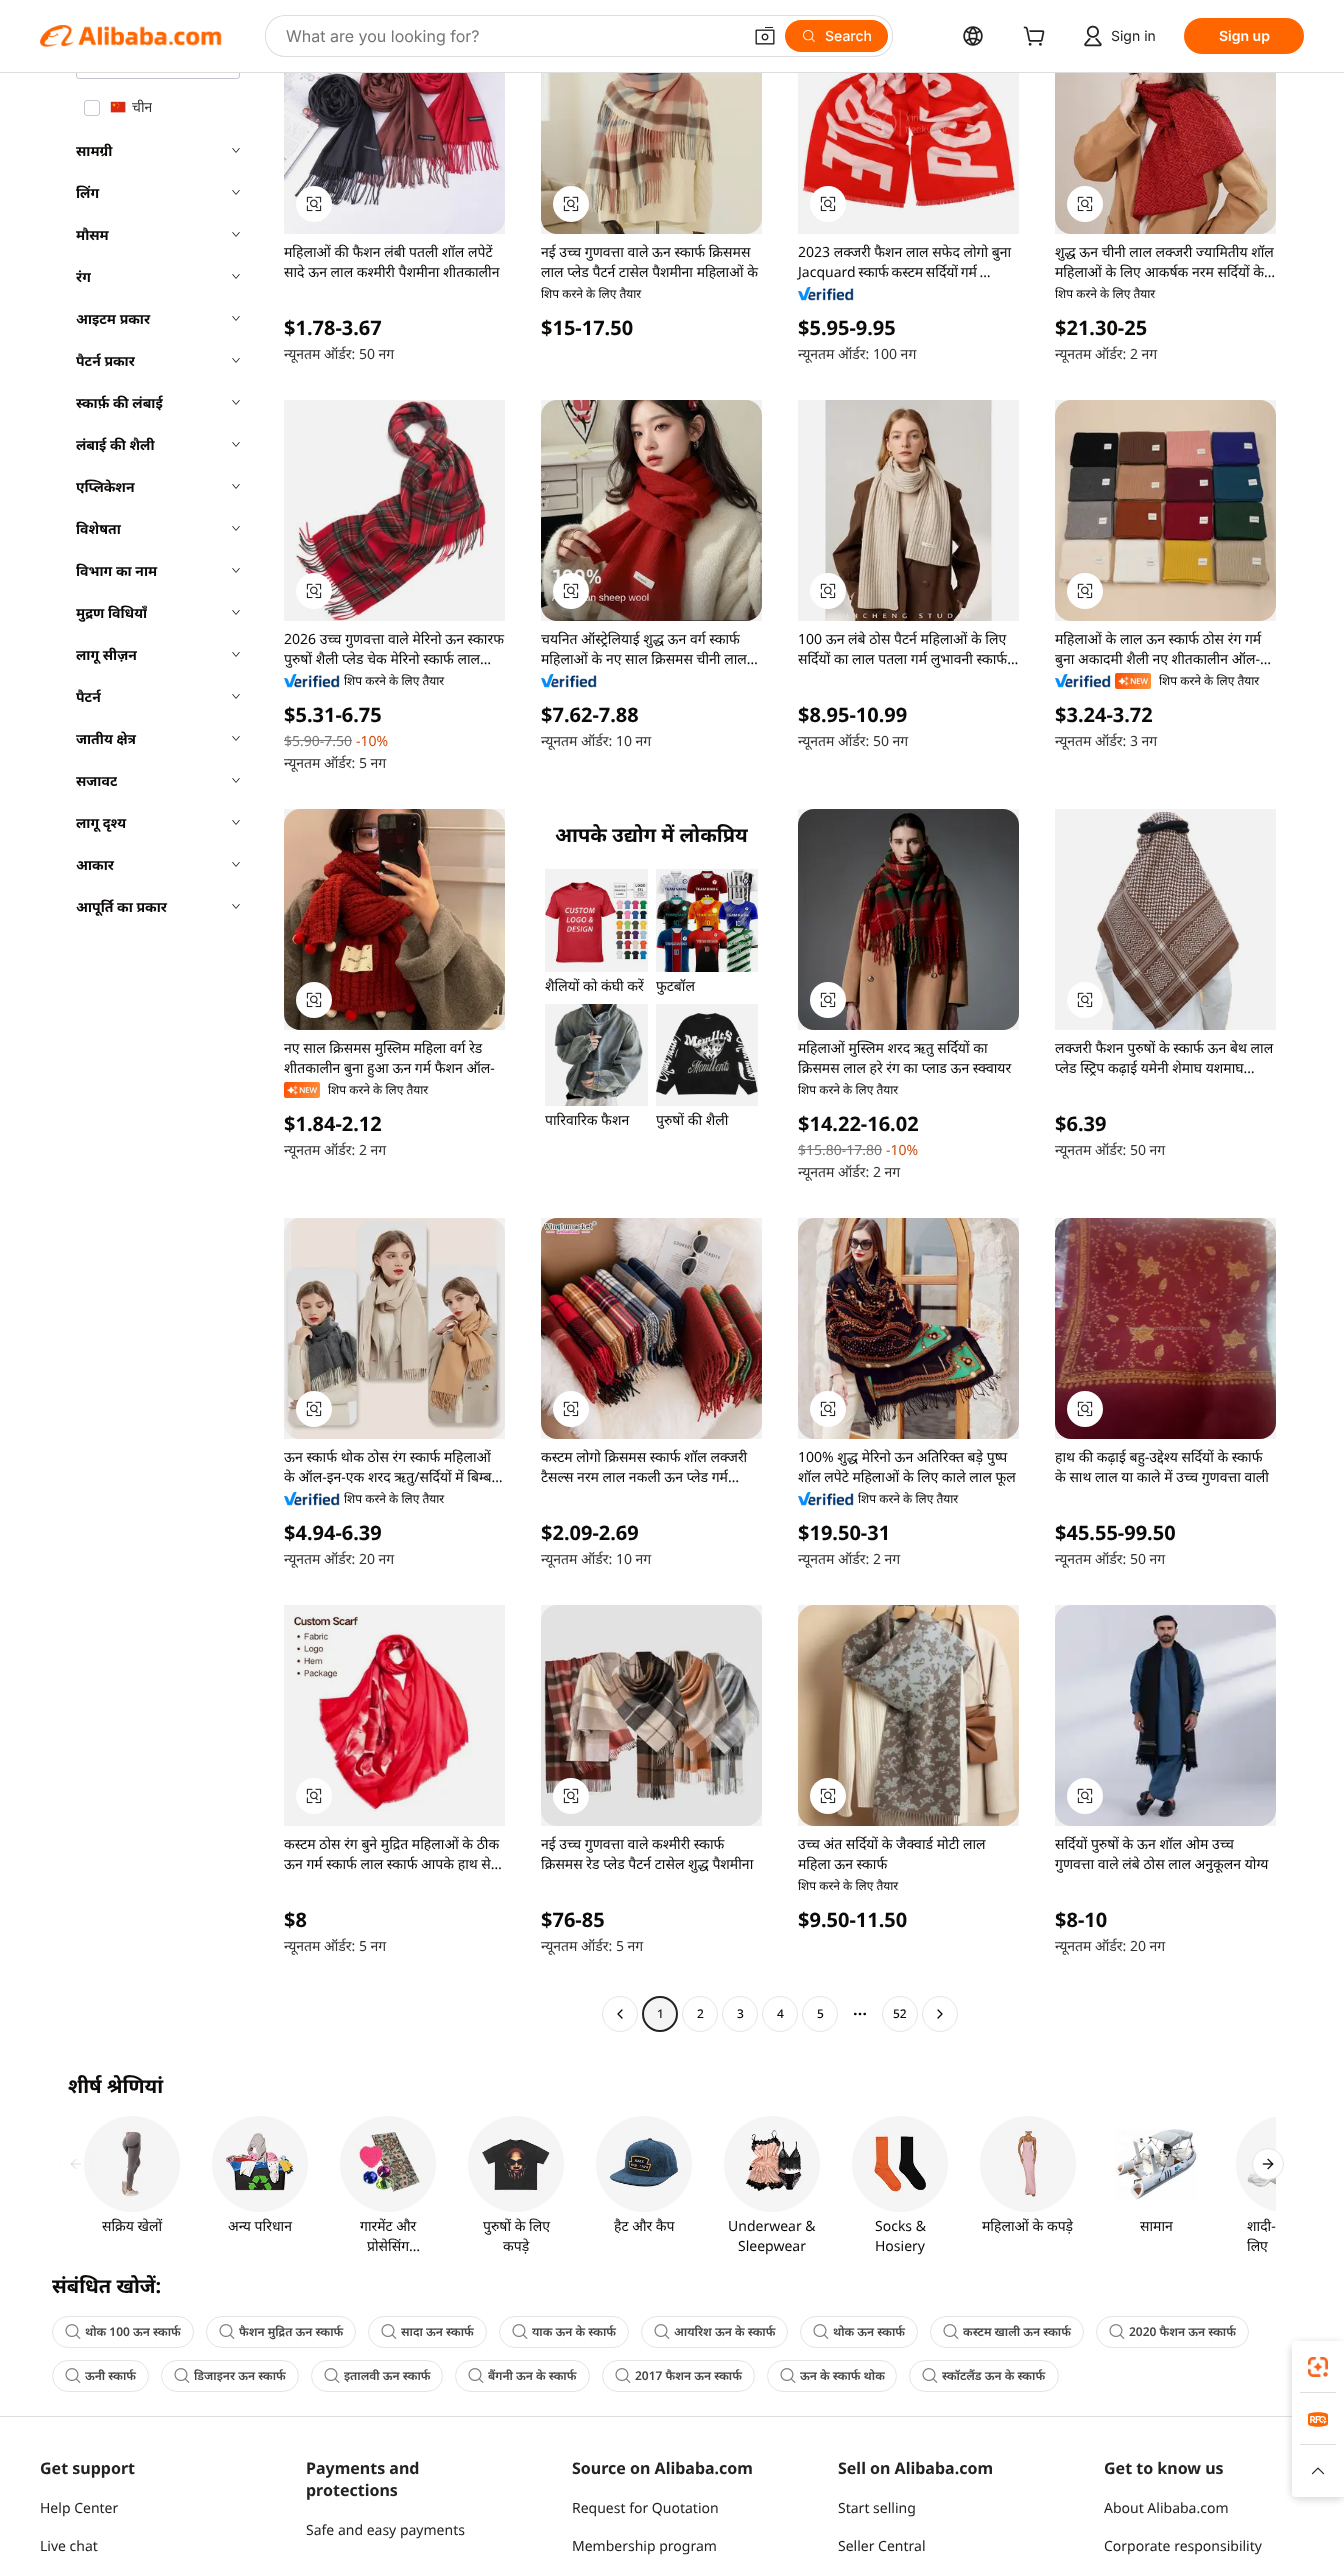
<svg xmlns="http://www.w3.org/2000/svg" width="1344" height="2557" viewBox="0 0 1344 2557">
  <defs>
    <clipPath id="clip1"><rect x="132" y="97" width="20" height="20"/></clipPath>
    <clipPath id="clip2"><rect x="76" y="214" width="33" height="42"/></clipPath>
    <clipPath id="clip3"><rect x="76" y="256" width="15" height="42"/></clipPath>
    <clipPath id="clip4"><rect x="76" y="340" width="59" height="42"/></clipPath>
    <clipPath id="clip5"><rect x="76" y="424" width="79" height="42"/></clipPath>
    <clipPath id="clip6"><rect x="76" y="592" width="71" height="42"/></clipPath>
    <clipPath id="clip7"><rect x="76" y="676" width="25" height="42"/></clipPath>
    <clipPath id="clip8"><rect x="76" y="760" width="41" height="42"/></clipPath>
    <clipPath id="clip9"><rect x="1055" y="242" width="221" height="40"/></clipPath>
    <clipPath id="clip10"><rect x="284" y="629" width="221" height="40"/></clipPath>
    <clipPath id="clip11"><rect x="1055" y="629" width="221" height="40"/></clipPath>
    <clipPath id="clip12"><rect x="284" y="1038" width="221" height="40"/></clipPath>
    <clipPath id="clip13"><rect x="545" y="976" width="103" height="20"/></clipPath>
    <clipPath id="clip14"><rect x="656" y="976" width="102" height="20"/></clipPath>
    <clipPath id="clip15"><rect x="656" y="1110" width="102" height="20"/></clipPath>
    <clipPath id="clip16"><rect x="1055" y="1038" width="221" height="40"/></clipPath>
    <clipPath id="clip17"><rect x="284" y="1447" width="221" height="40"/></clipPath>
    <clipPath id="clip18"><rect x="541" y="1447" width="221" height="40"/></clipPath>
    <clipPath id="clip19"><rect x="798" y="1447" width="221" height="40"/></clipPath>
    <clipPath id="clip20"><rect x="1055" y="1447" width="221" height="40"/></clipPath>
    <clipPath id="clip21"><rect x="1055" y="1834" width="221" height="40"/></clipPath>
    <filter id="blur1" x="-50%" y="-200%" width="200%" height="500%"><feGaussianBlur stdDeviation="3"/></filter>
  </defs>
  <rect width="100%" height="100%" fill="#ffffff"/>
  <rect x="76.5" y="51.5" width="163" height="27" rx="2.5" fill="none" stroke="#c4c6cf"/>
  <rect x="76" y="51" width="164" height="21" fill="#ffffff"/>
  <rect x="0" y="72" width="1344" height="1" fill="#dddddd"/>
  <image x="40" y="25" width="182" height="22" href="img1.png"/>
  <rect x="265" y="15" width="628" height="42" rx="20" fill="#dddddd"/>
  <rect x="266" y="16" width="626" height="40" rx="19" fill="#ffffff"/>
  <text x="286" y="42" font-family="Inter" font-size="16" fill="#767676">What are you looking for?</text>
  <image x="755" y="27" width="20" height="18" href="img2.png"/>
  <rect x="785" y="20" width="103" height="32" rx="16" fill="#ff6600"/>
  <image x="803" y="30" width="12" height="12" href="img3.png"/>
  <text x="825" y="41" font-family="Inter" font-size="14" font-weight="500" fill="#ffffff">Search</text>
  <image x="963" y="26" width="20" height="20" href="img4.png"/>
  <image x="1023" y="26" width="22" height="20" href="img5.png"/>
  <image x="1084" y="25" width="18" height="22" href="img6.png"/>
  <text x="1111" y="41" font-family="Inter" font-size="14" fill="#222222">Sign in</text>
  <rect x="1184" y="18" width="120" height="36" rx="18" fill="#ff6600"/>
  <text x="1219" y="41" font-family="Inter" font-size="14" font-weight="600" fill="#ffffff">Sign up</text>
  <rect x="84.5" y="100.5" width="15" height="15" rx="2.5" fill="none" stroke="#c4c6cf"/>
  <image x="110" y="101" width="16" height="12" href="img7.png"/>
  <g clip-path="url(#clip1)">
    <text x="132" y="112" font-family="Noto Sans" font-size="14" fill="#333333">चीन</text>
  </g>
  <text x="76" y="156" font-family="Noto Sans" font-size="14" font-weight="bold" fill="#0c0a09">सामग्री</text>
  <image x="232" y="148" width="8" height="5" href="img8.png"/>
  <text x="76" y="198" font-family="Noto Sans" font-size="14" font-weight="bold" fill="#0c0a09">लिंग</text>
  <image x="232" y="190" width="8" height="5" href="img8.png"/>
  <g clip-path="url(#clip2)">
    <text x="76" y="240" font-family="Noto Sans" font-size="14" font-weight="bold" fill="#0c0a09">मौसम</text>
  </g>
  <image x="232" y="232" width="8" height="5" href="img8.png"/>
  <g clip-path="url(#clip3)">
    <text x="76" y="282" font-family="Noto Sans" font-size="14" font-weight="bold" fill="#0c0a09">रंग</text>
  </g>
  <image x="232" y="274" width="8" height="5" href="img8.png"/>
  <text x="76" y="324" font-family="Noto Sans" font-size="14" font-weight="bold" fill="#0c0a09">आइटम प्रकार</text>
  <image x="232" y="316" width="8" height="5" href="img8.png"/>
  <g clip-path="url(#clip4)">
    <text x="76" y="366" font-family="Noto Sans" font-size="14" font-weight="bold" fill="#0c0a09">पैटर्न प्रकार</text>
  </g>
  <image x="232" y="358" width="8" height="5" href="img8.png"/>
  <text x="76" y="408" font-family="Noto Sans" font-size="14" font-weight="bold" fill="#0c0a09">स्कार्फ़ की लंबाई</text>
  <image x="232" y="400" width="8" height="5" href="img8.png"/>
  <g clip-path="url(#clip5)">
    <text x="76" y="450" font-family="Noto Sans" font-size="14" font-weight="bold" fill="#0c0a09">लंबाई की शैली</text>
  </g>
  <image x="232" y="442" width="8" height="5" href="img8.png"/>
  <text x="76" y="492" font-family="Noto Sans" font-size="14" font-weight="bold" fill="#0c0a09">एप्लिकेशन</text>
  <image x="232" y="484" width="8" height="5" href="img8.png"/>
  <text x="76" y="534" font-family="Noto Sans" font-size="14" font-weight="bold" fill="#0c0a09">विशेषता</text>
  <image x="232" y="526" width="8" height="5" href="img8.png"/>
  <text x="76" y="576" font-family="Noto Sans" font-size="14" font-weight="bold" fill="#0c0a09">विभाग का नाम</text>
  <image x="232" y="568" width="8" height="5" href="img8.png"/>
  <g clip-path="url(#clip6)">
    <text x="76" y="618" font-family="Noto Sans" font-size="14" font-weight="bold" fill="#0c0a09">मुद्रण विधियाँ</text>
  </g>
  <image x="232" y="610" width="8" height="5" href="img8.png"/>
  <text x="76" y="660" font-family="Noto Sans" font-size="14" font-weight="bold" fill="#0c0a09">लागू सीज़न</text>
  <image x="232" y="652" width="8" height="5" href="img8.png"/>
  <g clip-path="url(#clip7)">
    <text x="76" y="702" font-family="Noto Sans" font-size="14" font-weight="bold" fill="#0c0a09">पैटर्न</text>
  </g>
  <image x="232" y="694" width="8" height="5" href="img8.png"/>
  <text x="76" y="744" font-family="Noto Sans" font-size="14" font-weight="bold" fill="#0c0a09">जातीय क्षेत्र</text>
  <image x="232" y="736" width="8" height="5" href="img8.png"/>
  <g clip-path="url(#clip8)">
    <text x="76" y="786" font-family="Noto Sans" font-size="14" font-weight="bold" fill="#0c0a09">सजावट</text>
  </g>
  <image x="232" y="778" width="8" height="5" href="img8.png"/>
  <text x="76" y="828" font-family="Noto Sans" font-size="14" font-weight="bold" fill="#0c0a09">लागू दृश्य</text>
  <image x="232" y="820" width="8" height="5" href="img8.png"/>
  <text x="76" y="870" font-family="Noto Sans" font-size="14" font-weight="bold" fill="#0c0a09">आकार</text>
  <image x="232" y="862" width="8" height="5" href="img8.png"/>
  <text x="76" y="912" font-family="Noto Sans" font-size="14" font-weight="bold" fill="#0c0a09">आपूर्ति का प्रकार</text>
  <image x="232" y="904" width="8" height="5" href="img8.png"/>
  <image x="284" y="73" width="221" height="161" href="img9.png"/>
  <rect x="284" y="73" width="221" height="161" fill="#000000" fill-opacity="0.05"/>
  <circle cx="314" cy="204" r="18" fill="#ffffff"/>
  <image x="306" y="196" width="16" height="16" href="img10.png"/>
  <text x="284" y="257" font-family="Noto Sans" font-size="14" fill="#0c0a09">महिलाओं की फैशन लंबी पतली शॉल लपेटें</text>
  <text x="284" y="277" font-family="Noto Sans" font-size="14" fill="#0c0a09">सादे ऊन लाल कश्मीरी पैशमीना शीतकालीन</text>
  <text x="284" y="335" font-family="Noto Sans" font-size="20" font-weight="bold" fill="#0c0a09">$1.78-3.67</text>
  <text x="284" y="359" font-family="Noto Sans" font-size="14" fill="#333333">न्यूनतम ऑर्डर: 50 नग</text>
  <image x="541" y="73" width="221" height="161" href="img11.png"/>
  <rect x="541" y="73" width="221" height="161" fill="#000000" fill-opacity="0.05"/>
  <circle cx="571" cy="204" r="18" fill="#ffffff"/>
  <image x="563" y="196" width="16" height="16" href="img10.png"/>
  <text x="541" y="257" font-family="Noto Sans" font-size="14" fill="#0c0a09">नई उच्च गुणवत्ता वाले ऊन स्कार्फ क्रिसमस</text>
  <text x="541" y="277" font-family="Noto Sans" font-size="14" fill="#0c0a09">लाल प्लेड पैटर्न टासेल पैशमीना महिलाओं के</text>
  <text x="541" y="298" font-family="Noto Sans" font-size="12" fill="#0c0a09">शिप करने के लिए तैयार</text>
  <text x="541" y="335" font-family="Noto Sans" font-size="20" font-weight="bold" fill="#0c0a09">$15-17.50</text>
  <image x="798" y="73" width="218" height="137" href="img12.png"/>
  <rect x="798" y="73" width="221" height="161" fill="#000000" fill-opacity="0.05"/>
  <circle cx="828" cy="204" r="18" fill="#ffffff"/>
  <image x="820" y="196" width="16" height="16" href="img10.png"/>
  <text x="798" y="257" font-family="Noto Sans" font-size="14" fill="#0c0a09">2023 लक्जरी फैशन लाल सफेद लोगो बुना</text>
  <text x="798" y="277" word-spacing="-1" font-family="Noto Sans" font-size="14" fill="#0c0a09">Jacquard स्कार्फ कस्टम सर्दियों गर्म …</text>
  <image x="798" y="287" width="56" height="14" href="img13.png"/>
  <text x="798" y="335" font-family="Noto Sans" font-size="20" font-weight="bold" fill="#0c0a09">$5.95-9.95</text>
  <text x="798" y="359" font-family="Noto Sans" font-size="14" fill="#333333">न्यूनतम ऑर्डर: 100 नग</text>
  <image x="1055" y="73" width="221" height="161" href="img14.png"/>
  <rect x="1055" y="73" width="221" height="161" fill="#000000" fill-opacity="0.05"/>
  <circle cx="1085" cy="204" r="18" fill="#ffffff"/>
  <image x="1077" y="196" width="16" height="16" href="img10.png"/>
  <g clip-path="url(#clip9)">
    <text x="1055" y="257" font-family="Noto Sans" font-size="14" fill="#0c0a09">शुद्ध ऊन चीनी लाल लक्जरी ज्यामितीय शॉल</text>
  </g>
  <text x="1055" y="277" font-family="Noto Sans" font-size="14" fill="#0c0a09">महिलाओं के लिए आकर्षक नरम सर्दियों के…</text>
  <text x="1055" y="298" font-family="Noto Sans" font-size="12" fill="#0c0a09">शिप करने के लिए तैयार</text>
  <text x="1055" y="335" font-family="Noto Sans" font-size="20" font-weight="bold" fill="#0c0a09">$21.30-25</text>
  <text x="1055" y="359" font-family="Noto Sans" font-size="14" fill="#333333">न्यूनतम ऑर्डर: 2 नग</text>
  <image x="295" y="400" width="194" height="221" href="img15.png"/>
  <rect x="284" y="400" width="221" height="221" fill="#000000" fill-opacity="0.05"/>
  <circle cx="314" cy="591" r="18" fill="#ffffff"/>
  <image x="306" y="583" width="16" height="16" href="img10.png"/>
  <text x="284" y="644" font-family="Noto Sans" font-size="14" fill="#0c0a09">2026 उच्च गुणवत्ता वाले मेरिनो ऊन स्कारफ</text>
  <g clip-path="url(#clip10)">
    <text x="284" y="664" font-family="Noto Sans" font-size="14" fill="#0c0a09">पुरुषों शैली प्लेड चेक मेरिनो स्कार्फ लाल…</text>
  </g>
  <image x="284" y="674" width="56" height="14" href="img13.png"/>
  <text x="344" y="685" font-family="Noto Sans" font-size="12" fill="#0c0a09">शिप करने के लिए तैयार</text>
  <text x="284" y="722" font-family="Noto Sans" font-size="20" font-weight="bold" fill="#0c0a09">$5.31-6.75</text>
  <text x="284" y="746" font-family="Noto Sans" font-size="14" fill="#767676">$5.90-7.50</text>
  <rect x="284" y="740" width="68" height="1" fill="#767676"/>
  <text x="356" y="746" font-family="Noto Sans" font-size="14" fill="#d04a0a">-10%</text>
  <text x="284" y="768" font-family="Noto Sans" font-size="14" fill="#333333">न्यूनतम ऑर्डर: 5 नग</text>
  <image x="541" y="400" width="221" height="221" href="img16.png"/>
  <rect x="541" y="400" width="221" height="221" fill="#000000" fill-opacity="0.05"/>
  <circle cx="571" cy="591" r="18" fill="#ffffff"/>
  <image x="563" y="583" width="16" height="16" href="img10.png"/>
  <text x="541" y="644" font-family="Noto Sans" font-size="14" fill="#0c0a09">चयनित ऑस्ट्रेलियाई शुद्ध ऊन वर्ग स्कार्फ</text>
  <text x="541" y="664" font-family="Noto Sans" font-size="14" fill="#0c0a09">महिलाओं के नए साल क्रिसमस चीनी लाल…</text>
  <image x="541" y="674" width="56" height="14" href="img13.png"/>
  <text x="541" y="722" font-family="Noto Sans" font-size="20" font-weight="bold" fill="#0c0a09">$7.62-7.88</text>
  <text x="541" y="746" font-family="Noto Sans" font-size="14" fill="#333333">न्यूनतम ऑर्डर: 10 नग</text>
  <image x="825" y="400" width="170" height="221" href="img17.png"/>
  <rect x="798" y="400" width="221" height="221" fill="#000000" fill-opacity="0.05"/>
  <circle cx="828" cy="591" r="18" fill="#ffffff"/>
  <image x="820" y="583" width="16" height="16" href="img10.png"/>
  <text x="798" y="644" font-family="Noto Sans" font-size="14" fill="#0c0a09">100 ऊन लंबे ठोस पैटर्न महिलाओं के लिए</text>
  <text x="798" y="664" font-family="Noto Sans" font-size="14" fill="#0c0a09">सर्दियों का लाल पतला गर्म लुभावनी स्कार्फ…</text>
  <text x="798" y="722" font-family="Noto Sans" font-size="20" font-weight="bold" fill="#0c0a09">$8.95-10.99</text>
  <text x="798" y="746" font-family="Noto Sans" font-size="14" fill="#333333">न्यूनतम ऑर्डर: 50 नग</text>
  <image x="1055" y="400" width="221" height="221" href="img18.png"/>
  <rect x="1055" y="400" width="221" height="221" fill="#000000" fill-opacity="0.05"/>
  <circle cx="1085" cy="591" r="18" fill="#ffffff"/>
  <image x="1077" y="583" width="16" height="16" href="img10.png"/>
  <text x="1055" y="644" font-family="Noto Sans" font-size="14" fill="#0c0a09">महिलाओं के लाल ऊन स्कार्फ ठोस रंग गर्म</text>
  <g clip-path="url(#clip11)">
    <text x="1055" y="664" font-family="Noto Sans" font-size="14" fill="#0c0a09">बुना अकादमी शैली नए शीतकालीन ऑल-…</text>
  </g>
  <image x="1055" y="674" width="56" height="14" href="img13.png"/>
  <image x="1115" y="673" width="36" height="16" href="img19.png"/>
  <text x="1159" y="685" font-family="Noto Sans" font-size="12" fill="#0c0a09">शिप करने के लिए तैयार</text>
  <text x="1055" y="722" font-family="Noto Sans" font-size="20" font-weight="bold" fill="#0c0a09">$3.24-3.72</text>
  <text x="1055" y="746" font-family="Noto Sans" font-size="14" fill="#333333">न्यूनतम ऑर्डर: 3 नग</text>
  <image x="284" y="809" width="221" height="221" href="img20.png"/>
  <rect x="284" y="809" width="221" height="221" fill="#000000" fill-opacity="0.05"/>
  <circle cx="314" cy="1000" r="18" fill="#ffffff"/>
  <image x="306" y="992" width="16" height="16" href="img10.png"/>
  <text x="284" y="1053" font-family="Noto Sans" font-size="14" fill="#0c0a09">नए साल क्रिसमस मुस्लिम महिला वर्ग रेड</text>
  <g clip-path="url(#clip12)">
    <text x="284" y="1073" font-family="Noto Sans" font-size="14" fill="#0c0a09">शीतकालीन बुना हुआ ऊन गर्म फैशन ऑल-</text>
  </g>
  <image x="284" y="1082" width="36" height="16" href="img19.png"/>
  <text x="328" y="1094" font-family="Noto Sans" font-size="12" fill="#0c0a09">शिप करने के लिए तैयार</text>
  <text x="284" y="1131" font-family="Noto Sans" font-size="20" font-weight="bold" fill="#0c0a09">$1.84-2.12</text>
  <text x="284" y="1155" font-family="Noto Sans" font-size="14" fill="#333333">न्यूनतम ऑर्डर: 2 नग</text>
  <text x="555" y="842" font-family="Noto Sans" font-size="20" font-weight="bold" fill="#0c0a09">आपके उद्योग में लोकप्रिय</text>
  <image x="545" y="881" width="103" height="83" href="img21.png"/>
  <rect x="545" y="869" width="103" height="103" fill="#000000" fill-opacity="0.05"/>
  <g clip-path="url(#clip13)">
    <text x="545" y="991" font-family="Noto Sans" font-size="14" fill="#0c0a09">शैलियों को कंघी करें</text>
  </g>
  <image x="656" y="869" width="102" height="103" href="img22.png"/>
  <rect x="656" y="869" width="102" height="103" fill="#000000" fill-opacity="0.05"/>
  <g clip-path="url(#clip14)">
    <text x="656" y="991" font-family="Noto Sans" font-size="14" fill="#0c0a09">फुटबॉल</text>
  </g>
  <image x="554" y="1004" width="89" height="102" href="img23.png"/>
  <rect x="545" y="1004" width="103" height="102" fill="#000000" fill-opacity="0.05"/>
  <text x="545" y="1125" font-family="Noto Sans" font-size="14" fill="#0c0a09">पारिवारिक फैशन</text>
  <image x="656" y="1013" width="102" height="82" href="img24.png"/>
  <rect x="656" y="1004" width="102" height="102" fill="#000000" fill-opacity="0.05"/>
  <g clip-path="url(#clip15)">
    <text x="656" y="1125" font-family="Noto Sans" font-size="14" fill="#0c0a09">पुरुषों की शैली</text>
  </g>
  <image x="798" y="809" width="221" height="221" href="img25.png"/>
  <rect x="798" y="809" width="221" height="221" fill="#000000" fill-opacity="0.05"/>
  <circle cx="828" cy="1000" r="18" fill="#ffffff"/>
  <image x="820" y="992" width="16" height="16" href="img10.png"/>
  <text x="798" y="1053" font-family="Noto Sans" font-size="14" fill="#0c0a09">महिलाओं मुस्लिम शरद ऋतु सर्दियों का</text>
  <text x="798" y="1073" font-family="Noto Sans" font-size="14" fill="#0c0a09">क्रिसमस लाल हरे रंग का प्लाड ऊन स्क्वायर</text>
  <text x="798" y="1094" font-family="Noto Sans" font-size="12" fill="#0c0a09">शिप करने के लिए तैयार</text>
  <text x="798" y="1131" font-family="Noto Sans" font-size="20" font-weight="bold" fill="#0c0a09">$14.22-16.02</text>
  <text x="798" y="1155" font-family="Noto Sans" font-size="14" fill="#767676">$15.80-17.80</text>
  <rect x="798" y="1149" width="84" height="1" fill="#767676"/>
  <text x="886" y="1155" font-family="Noto Sans" font-size="14" fill="#d04a0a">-10%</text>
  <text x="798" y="1177" font-family="Noto Sans" font-size="14" fill="#333333">न्यूनतम ऑर्डर: 2 नग</text>
  <image x="1094" y="809" width="147" height="221" href="img26.png"/>
  <rect x="1055" y="809" width="221" height="221" fill="#000000" fill-opacity="0.05"/>
  <circle cx="1085" cy="1000" r="18" fill="#ffffff"/>
  <image x="1077" y="992" width="16" height="16" href="img10.png"/>
  <text x="1055" y="1053" font-family="Noto Sans" font-size="14" fill="#0c0a09">लक्जरी फैशन पुरुषों के स्कार्फ ऊन बेथ लाल</text>
  <g clip-path="url(#clip16)">
    <text x="1055" y="1073" font-family="Noto Sans" font-size="14" fill="#0c0a09">प्लेड स्ट्रिप कढ़ाई यमेनी शेमाघ यशमाघ…</text>
  </g>
  <text x="1055" y="1131" font-family="Noto Sans" font-size="20" font-weight="bold" fill="#0c0a09">$6.39</text>
  <text x="1055" y="1155" font-family="Noto Sans" font-size="14" fill="#333333">न्यूनतम ऑर्डर: 50 नग</text>
  <image x="284" y="1218" width="221" height="221" href="img27.png"/>
  <rect x="284" y="1218" width="221" height="221" fill="#000000" fill-opacity="0.05"/>
  <circle cx="314" cy="1409" r="18" fill="#ffffff"/>
  <image x="306" y="1401" width="16" height="16" href="img10.png"/>
  <text x="284" y="1462" font-family="Noto Sans" font-size="14" fill="#0c0a09">ऊन स्कार्फ थोक ठोस रंग स्कार्फ महिलाओं</text>
  <g clip-path="url(#clip17)">
    <text x="284" y="1482" font-family="Noto Sans" font-size="14" fill="#0c0a09">के ऑल-इन-एक शरद ऋतु/सर्दियों में बिम्ब…</text>
  </g>
  <image x="284" y="1492" width="56" height="14" href="img13.png"/>
  <text x="344" y="1503" font-family="Noto Sans" font-size="12" fill="#0c0a09">शिप करने के लिए तैयार</text>
  <text x="284" y="1540" font-family="Noto Sans" font-size="20" font-weight="bold" fill="#0c0a09">$4.94-6.39</text>
  <text x="284" y="1564" font-family="Noto Sans" font-size="14" fill="#333333">न्यूनतम ऑर्डर: 20 नग</text>
  <image x="541" y="1218" width="221" height="221" href="img28.png"/>
  <rect x="541" y="1218" width="221" height="221" fill="#000000" fill-opacity="0.05"/>
  <circle cx="571" cy="1409" r="18" fill="#ffffff"/>
  <image x="563" y="1401" width="16" height="16" href="img10.png"/>
  <text x="541" y="1462" font-family="Noto Sans" font-size="14" fill="#0c0a09">कस्टम लोगो क्रिसमस स्कार्फ शॉल लक्जरी</text>
  <g clip-path="url(#clip18)">
    <text x="541" y="1482" font-family="Noto Sans" font-size="14" fill="#0c0a09">टैसल्स नरम लाल नकली ऊन प्लेड गर्म…</text>
  </g>
  <text x="541" y="1540" font-family="Noto Sans" font-size="20" font-weight="bold" fill="#0c0a09">$2.09-2.69</text>
  <text x="541" y="1564" font-family="Noto Sans" font-size="14" fill="#333333">न्यूनतम ऑर्डर: 10 नग</text>
  <image x="798" y="1218" width="221" height="221" href="img29.png"/>
  <rect x="798" y="1218" width="221" height="221" fill="#000000" fill-opacity="0.05"/>
  <circle cx="828" cy="1409" r="18" fill="#ffffff"/>
  <image x="820" y="1401" width="16" height="16" href="img10.png"/>
  <text x="798" y="1462" font-family="Noto Sans" font-size="14" fill="#0c0a09">100% शुद्ध मेरिनो ऊन अतिरिक्त बड़े पुष्प</text>
  <g clip-path="url(#clip19)">
    <text x="798" y="1482" font-family="Noto Sans" font-size="14" fill="#0c0a09">शॉल लपेटे महिलाओं के लिए काले लाल फूल</text>
  </g>
  <image x="798" y="1492" width="56" height="14" href="img13.png"/>
  <text x="858" y="1503" font-family="Noto Sans" font-size="12" fill="#0c0a09">शिप करने के लिए तैयार</text>
  <text x="798" y="1540" font-family="Noto Sans" font-size="20" font-weight="bold" fill="#0c0a09">$19.50-31</text>
  <text x="798" y="1564" font-family="Noto Sans" font-size="14" fill="#333333">न्यूनतम ऑर्डर: 2 नग</text>
  <image x="1055" y="1218" width="221" height="221" href="img30.png"/>
  <rect x="1055" y="1218" width="221" height="221" fill="#000000" fill-opacity="0.05"/>
  <circle cx="1085" cy="1409" r="18" fill="#ffffff"/>
  <image x="1077" y="1401" width="16" height="16" href="img10.png"/>
  <text x="1055" y="1462" font-family="Noto Sans" font-size="14" fill="#0c0a09">हाथ की कढ़ाई बहु-उद्देश्य सर्दियों के स्कार्फ</text>
  <g clip-path="url(#clip20)">
    <text x="1055" y="1482" font-family="Noto Sans" font-size="14" fill="#0c0a09">के साथ लाल या काले में उच्च गुणवत्ता वाली</text>
  </g>
  <text x="1055" y="1540" font-family="Noto Sans" font-size="20" font-weight="bold" fill="#0c0a09">$45.55-99.50</text>
  <text x="1055" y="1564" font-family="Noto Sans" font-size="14" fill="#333333">न्यूनतम ऑर्डर: 50 नग</text>
  <image x="293" y="1614" width="180" height="198" href="img31.png"/>
  <rect x="284" y="1605" width="221" height="221" fill="#000000" fill-opacity="0.05"/>
  <circle cx="314" cy="1796" r="18" fill="#ffffff"/>
  <image x="306" y="1788" width="16" height="16" href="img10.png"/>
  <text x="284" y="1849" font-family="Noto Sans" font-size="14" fill="#0c0a09">कस्टम ठोस रंग बुने मुद्रित महिलाओं के ठीक</text>
  <text x="284" y="1869" font-family="Noto Sans" font-size="14" fill="#0c0a09">ऊन गर्म स्कार्फ लाल स्कार्फ आपके हाथ से…</text>
  <text x="284" y="1927" font-family="Noto Sans" font-size="20" font-weight="bold" fill="#0c0a09">$8</text>
  <text x="284" y="1951" font-family="Noto Sans" font-size="14" fill="#333333">न्यूनतम ऑर्डर: 5 नग</text>
  <image x="541" y="1605" width="221" height="221" href="img32.png"/>
  <rect x="541" y="1605" width="221" height="221" fill="#000000" fill-opacity="0.05"/>
  <circle cx="571" cy="1796" r="18" fill="#ffffff"/>
  <image x="563" y="1788" width="16" height="16" href="img10.png"/>
  <text x="541" y="1849" font-family="Noto Sans" font-size="14" fill="#0c0a09">नई उच्च गुणवत्ता वाले कश्मीरी स्कार्फ</text>
  <text x="541" y="1869" font-family="Noto Sans" font-size="14" fill="#0c0a09">क्रिसमस रेड प्लेड पैटर्न टासेल शुद्ध पैशमीना</text>
  <text x="541" y="1927" font-family="Noto Sans" font-size="20" font-weight="bold" fill="#0c0a09">$76-85</text>
  <text x="541" y="1951" font-family="Noto Sans" font-size="14" fill="#333333">न्यूनतम ऑर्डर: 5 नग</text>
  <image x="798" y="1605" width="221" height="221" href="img33.png"/>
  <rect x="798" y="1605" width="221" height="221" fill="#000000" fill-opacity="0.05"/>
  <circle cx="828" cy="1796" r="18" fill="#ffffff"/>
  <image x="820" y="1788" width="16" height="16" href="img10.png"/>
  <text x="798" y="1849" font-family="Noto Sans" font-size="14" fill="#0c0a09">उच्च अंत सर्दियों के जैक्वार्ड मोटी लाल</text>
  <text x="798" y="1869" font-family="Noto Sans" font-size="14" fill="#0c0a09">महिला ऊन स्कार्फ</text>
  <text x="798" y="1890" font-family="Noto Sans" font-size="12" fill="#0c0a09">शिप करने के लिए तैयार</text>
  <text x="798" y="1927" font-family="Noto Sans" font-size="20" font-weight="bold" fill="#0c0a09">$9.50-11.50</text>
  <image x="1055" y="1605" width="221" height="221" href="img34.png"/>
  <rect x="1055" y="1605" width="221" height="221" fill="#000000" fill-opacity="0.05"/>
  <circle cx="1085" cy="1796" r="18" fill="#ffffff"/>
  <image x="1077" y="1788" width="16" height="16" href="img10.png"/>
  <text x="1055" y="1849" font-family="Noto Sans" font-size="14" fill="#0c0a09">सर्दियों पुरुषों के ऊन शॉल ओम उच्च</text>
  <g clip-path="url(#clip21)">
    <text x="1055" y="1869" font-family="Noto Sans" font-size="14" fill="#0c0a09">गुणवत्ता वाले लंबे ठोस लाल अनुकूलन योग्य</text>
  </g>
  <text x="1055" y="1927" font-family="Noto Sans" font-size="20" font-weight="bold" fill="#0c0a09">$8-10</text>
  <text x="1055" y="1951" font-family="Noto Sans" font-size="14" fill="#333333">न्यूनतम ऑर्डर: 20 नग</text>
  <circle cx="620" cy="2014" r="17.5" fill="none" stroke="#e7e5e4"/>
  <path d="M622 2018L618 2014L622 2010" fill="none" stroke="#0c0a09" stroke-width="1.3" stroke-linecap="round" stroke-linejoin="round"/>
  <circle cx="660" cy="2014" r="17" fill="#f4f4f4" stroke="#222222" stroke-width="2"/>
  <text x="657" y="2018" font-family="Noto Sans" font-size="12" font-weight="500" fill="#222222">1</text>
  <circle cx="700" cy="2014" r="17.5" fill="none" stroke="#e7e5e4"/>
  <text x="697" y="2018" font-family="Noto Sans" font-size="12" font-weight="500" fill="#0c0a09">2</text>
  <circle cx="740" cy="2014" r="17.5" fill="none" stroke="#e7e5e4"/>
  <text x="737" y="2018" font-family="Noto Sans" font-size="12" font-weight="500" fill="#0c0a09">3</text>
  <circle cx="780" cy="2014" r="17.5" fill="none" stroke="#e7e5e4"/>
  <text x="777" y="2018" font-family="Noto Sans" font-size="12" font-weight="500" fill="#0c0a09">4</text>
  <circle cx="820" cy="2014" r="17.5" fill="none" stroke="#e7e5e4"/>
  <text x="817" y="2018" font-family="Noto Sans" font-size="12" font-weight="500" fill="#0c0a09">5</text>
  <circle cx="860" cy="2014" r="0.7" fill="none" stroke="#0c0a09" stroke-width="1.3"/>
  <circle cx="864.7" cy="2014" r="0.7" fill="none" stroke="#0c0a09" stroke-width="1.3"/>
  <circle cx="855.3" cy="2014" r="0.7" fill="none" stroke="#0c0a09" stroke-width="1.3"/>
  <circle cx="900" cy="2014" r="17.5" fill="none" stroke="#e7e5e4"/>
  <text x="893" y="2018" font-family="Noto Sans" font-size="12" font-weight="500" fill="#0c0a09">52</text>
  <circle cx="940" cy="2014" r="17.5" fill="none" stroke="#e7e5e4"/>
  <path d="M938 2018L942 2014L938 2010" fill="none" stroke="#0c0a09" stroke-width="1.3" stroke-linecap="round" stroke-linejoin="round"/>
  <text x="68" y="2093" font-family="Noto Sans" font-size="20" font-weight="bold" fill="#0c0a09">शीर्ष श्रेणियां</text>
  <image x="84" y="2116" width="96" height="96" href="img37.png"/>
  <circle cx="76" cy="2164" r="15.5" fill="none" stroke="#e7e5e4" stroke-opacity="0.1"/>
  <image x="70" y="2159" width="11" height="10" href="img35.png"/>
  <image x="1236" y="2117" width="40" height="94" href="img46.png"/>
  <circle cx="1268" cy="2164" r="15.5" fill="#ffffff" stroke="#e7e5e4"/>
  <image x="1262" y="2158" width="12" height="12" href="img36.png"/>
  <text x="102" y="2231" font-family="Noto Sans" font-size="14" fill="#0c0a09">सक्रिय खेलों</text>
  <image x="212" y="2116" width="96" height="96" href="img38.png"/>
  <text x="228" y="2231" font-family="Noto Sans" font-size="14" fill="#0c0a09">अन्य परिधान</text>
  <image x="340" y="2116" width="96" height="96" href="img39.png"/>
  <text x="360" y="2231" font-family="Noto Sans" font-size="14" fill="#0c0a09">गारमेंट और</text>
  <text x="367" y="2251" font-family="Noto Sans" font-size="14" fill="#0c0a09">प्रोसेसिंग…</text>
  <image x="468" y="2116" width="96" height="96" href="img40.png"/>
  <text x="483" y="2231" font-family="Noto Sans" font-size="14" fill="#0c0a09">पुरुषों के लिए</text>
  <text x="503" y="2251" font-family="Noto Sans" font-size="14" fill="#0c0a09">कपड़े</text>
  <image x="596" y="2116" width="96" height="96" href="img41.png"/>
  <text x="614" y="2231" font-family="Noto Sans" font-size="14" fill="#0c0a09">हैट और कैप</text>
  <image x="724" y="2116" width="96" height="96" href="img42.png"/>
  <text x="728" y="2231" font-family="Noto Sans" font-size="14" fill="#0c0a09">Underwear &amp;</text>
  <text x="738" y="2251" font-family="Noto Sans" font-size="14" fill="#0c0a09">Sleepwear</text>
  <image x="852" y="2116" width="96" height="96" href="img43.png"/>
  <text x="875" y="2231" font-family="Noto Sans" font-size="14" fill="#0c0a09">Socks &amp;</text>
  <text x="875" y="2251" font-family="Noto Sans" font-size="14" fill="#0c0a09">Hosiery</text>
  <image x="980" y="2116" width="96" height="96" href="img44.png"/>
  <text x="982" y="2231" font-family="Noto Sans" font-size="14" fill="#0c0a09">महिलाओं के कपड़े</text>
  <image x="1115" y="2129" width="83" height="71" href="img45.png"/>
  <text x="1140" y="2231" font-family="Noto Sans" font-size="14" fill="#0c0a09">सामान</text>
  <text x="1247" y="2231" font-family="Noto Sans" font-size="14" fill="#0c0a09">शादी-</text>
  <text x="1247" y="2251" font-family="Noto Sans" font-size="14" fill="#0c0a09">लिए</text>
  <text x="52" y="2293" font-family="Noto Sans" font-size="20" font-weight="bold" fill="#0c0a09">संबंधित खोजें:</text>
  <rect x="52.5" y="2316.5" width="141" height="31" rx="15.5" fill="none" stroke="#e7e5e4"/>
  <image x="65" y="2324" width="16" height="15" href="img47.png"/>
  <text x="85" y="2336" font-family="Noto Sans" font-size="12" font-weight="600" fill="#444444">थोक 100 ऊन स्कार्फ</text>
  <rect x="206.5" y="2316.5" width="149" height="31" rx="15.5" fill="none" stroke="#e7e5e4"/>
  <text x="239" y="2336" font-family="Noto Sans" font-size="12" font-weight="600" fill="#444444">फैशन मुद्रित ऊन स्कार्फ</text>
  <image x="219" y="2324" width="16" height="15" href="img48.png"/>
  <rect x="368.5" y="2316.5" width="118" height="31" rx="15.5" fill="none" stroke="#e7e5e4"/>
  <image x="381" y="2324" width="16" height="15" href="img47.png"/>
  <text x="401" y="2336" font-family="Noto Sans" font-size="12" font-weight="600" fill="#444444">सादा ऊन स्कार्फ</text>
  <rect x="499.5" y="2316.5" width="129" height="31" rx="15.5" fill="none" stroke="#e7e5e4"/>
  <image x="512" y="2324" width="16" height="15" href="img47.png"/>
  <text x="532" y="2336" font-family="Noto Sans" font-size="12" font-weight="600" fill="#444444">याक ऊन के स्कार्फ</text>
  <rect x="641.5" y="2316.5" width="146" height="31" rx="15.5" fill="none" stroke="#e7e5e4"/>
  <image x="654" y="2324" width="16" height="15" href="img47.png"/>
  <text x="674" y="2336" font-family="Noto Sans" font-size="12" font-weight="600" fill="#444444">आयरिश ऊन के स्कार्फ</text>
  <rect x="800.5" y="2316.5" width="117" height="31" rx="15.5" fill="none" stroke="#e7e5e4"/>
  <image x="813" y="2324" width="16" height="15" href="img47.png"/>
  <text x="833" y="2336" font-family="Noto Sans" font-size="12" font-weight="600" fill="#444444">थोक ऊन स्कार्फ</text>
  <rect x="930.5" y="2316.5" width="153" height="31" rx="15.5" fill="none" stroke="#e7e5e4"/>
  <image x="943" y="2324" width="16" height="15" href="img47.png"/>
  <text x="963" y="2336" font-family="Noto Sans" font-size="12" font-weight="600" fill="#444444">कस्टम खाली ऊन स्कार्फ</text>
  <rect x="1096.5" y="2316.5" width="152" height="31" rx="15.5" fill="none" stroke="#e7e5e4"/>
  <image x="1109" y="2324" width="16" height="15" href="img47.png"/>
  <text x="1129" y="2336" font-family="Noto Sans" font-size="12" font-weight="600" fill="#444444">2020 फैशन ऊन स्कार्फ</text>
  <rect x="52.5" y="2360.5" width="96" height="31" rx="15.5" fill="none" stroke="#e7e5e4"/>
  <image x="65" y="2368" width="16" height="15" href="img47.png"/>
  <text x="85" y="2380" font-family="Noto Sans" font-size="12" font-weight="600" fill="#444444">ऊनी स्कार्फ</text>
  <rect x="161.5" y="2360.5" width="137" height="31" rx="15.5" fill="none" stroke="#e7e5e4"/>
  <image x="174" y="2368" width="16" height="15" href="img47.png"/>
  <text x="194" y="2380" font-family="Noto Sans" font-size="12" font-weight="600" fill="#444444">डिजाइनर ऊन स्कार्फ</text>
  <rect x="311.5" y="2360.5" width="131" height="31" rx="15.5" fill="none" stroke="#e7e5e4"/>
  <image x="324" y="2368" width="16" height="15" href="img47.png"/>
  <text x="344" y="2380" font-family="Noto Sans" font-size="12" font-weight="600" fill="#444444">इतालवी ऊन स्कार्फ</text>
  <rect x="455.5" y="2360.5" width="134" height="31" rx="15.5" fill="none" stroke="#e7e5e4"/>
  <text x="488" y="2380" font-family="Noto Sans" font-size="12" font-weight="600" fill="#444444">बैंगनी ऊन के स्कार्फ</text>
  <image x="468" y="2368" width="16" height="15" href="img49.png"/>
  <rect x="602.5" y="2360.5" width="152" height="31" rx="15.5" fill="none" stroke="#e7e5e4"/>
  <image x="615" y="2368" width="16" height="15" href="img47.png"/>
  <text x="635" y="2380" font-family="Noto Sans" font-size="12" font-weight="600" fill="#444444">2017 फैशन ऊन स्कार्फ</text>
  <rect x="767.5" y="2360.5" width="129" height="31" rx="15.5" fill="none" stroke="#e7e5e4"/>
  <image x="780" y="2368" width="16" height="15" href="img47.png"/>
  <text x="800" y="2380" font-family="Noto Sans" font-size="12" font-weight="600" fill="#444444">ऊन के स्कार्फ थोक</text>
  <rect x="909.5" y="2360.5" width="149" height="31" rx="15.5" fill="none" stroke="#e7e5e4"/>
  <image x="922" y="2368" width="16" height="15" href="img47.png"/>
  <text x="942" y="2380" font-family="Noto Sans" font-size="12" font-weight="600" fill="#444444">स्कॉटलैंड ऊन के स्कार्फ</text>
  <rect x="0" y="2416" width="1292" height="1" fill="#dddddd"/>
  <rect x="1290" y="2341" width="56" height="160" rx="10" fill="#000000" fill-opacity="0.12" filter="url(#blur1)"/>
  <path d="M1300 2341H1344V2497H1300C1295.5 2497 1292 2493.5 1292 2489V2349C1292 2344.5 1295.5 2341 1300 2341Z" fill="#ffffff"/>
  <rect x="1292" y="2341" width="52" height="52" rx="4" fill="#ffffff"/>
  <image x="1308" y="2357" width="20" height="20" href="img50.png"/>
  <rect x="1300" y="2392" width="36" height="1" fill="#dddddd"/>
  <image x="1308" y="2412" width="20" height="15" href="img51.png"/>
  <rect x="1300" y="2444" width="36" height="1" fill="#dddddd"/>
  <rect x="1292" y="2445" width="52" height="52" rx="4" fill="#ffffff"/>
  <image x="1311" y="2467" width="14" height="8" href="img52.png"/>
  <text x="40" y="2474" font-family="Noto Sans" font-size="16" font-weight="bold" fill="#222222">Get support</text>
  <text x="40" y="2513" font-family="Noto Sans" font-size="14" fill="#222222">Help Center</text>
  <text x="40" y="2551" font-family="Noto Sans" font-size="14" fill="#222222">Live chat</text>
  <text x="306" y="2474" font-family="Noto Sans" font-size="16" font-weight="bold" fill="#222222">Payments and</text>
  <text x="306" y="2496" font-family="Noto Sans" font-size="16" font-weight="bold" fill="#222222">protections</text>
  <text x="306" y="2535" font-family="Noto Sans" font-size="14" fill="#222222">Safe and easy payments</text>
  <text x="572" y="2474" font-family="Noto Sans" font-size="16" font-weight="bold" fill="#222222">Source on Alibaba.com</text>
  <text x="572" y="2513" font-family="Noto Sans" font-size="14" fill="#222222">Request for Quotation</text>
  <text x="572" y="2551" font-family="Noto Sans" font-size="14" fill="#222222">Membership program</text>
  <text x="838" y="2474" font-family="Noto Sans" font-size="16" font-weight="bold" fill="#222222">Sell on Alibaba.com</text>
  <text x="838" y="2513" font-family="Noto Sans" font-size="14" fill="#222222">Start selling</text>
  <text x="838" y="2551" font-family="Noto Sans" font-size="14" fill="#222222">Seller Central</text>
  <text x="1104" y="2474" font-family="Noto Sans" font-size="16" font-weight="bold" fill="#222222">Get to know us</text>
  <text x="1104" y="2513" font-family="Noto Sans" font-size="14" fill="#222222">About Alibaba.com</text>
  <text x="1104" y="2551" font-family="Noto Sans" font-size="14" fill="#222222">Corporate responsibility</text>
</svg>
